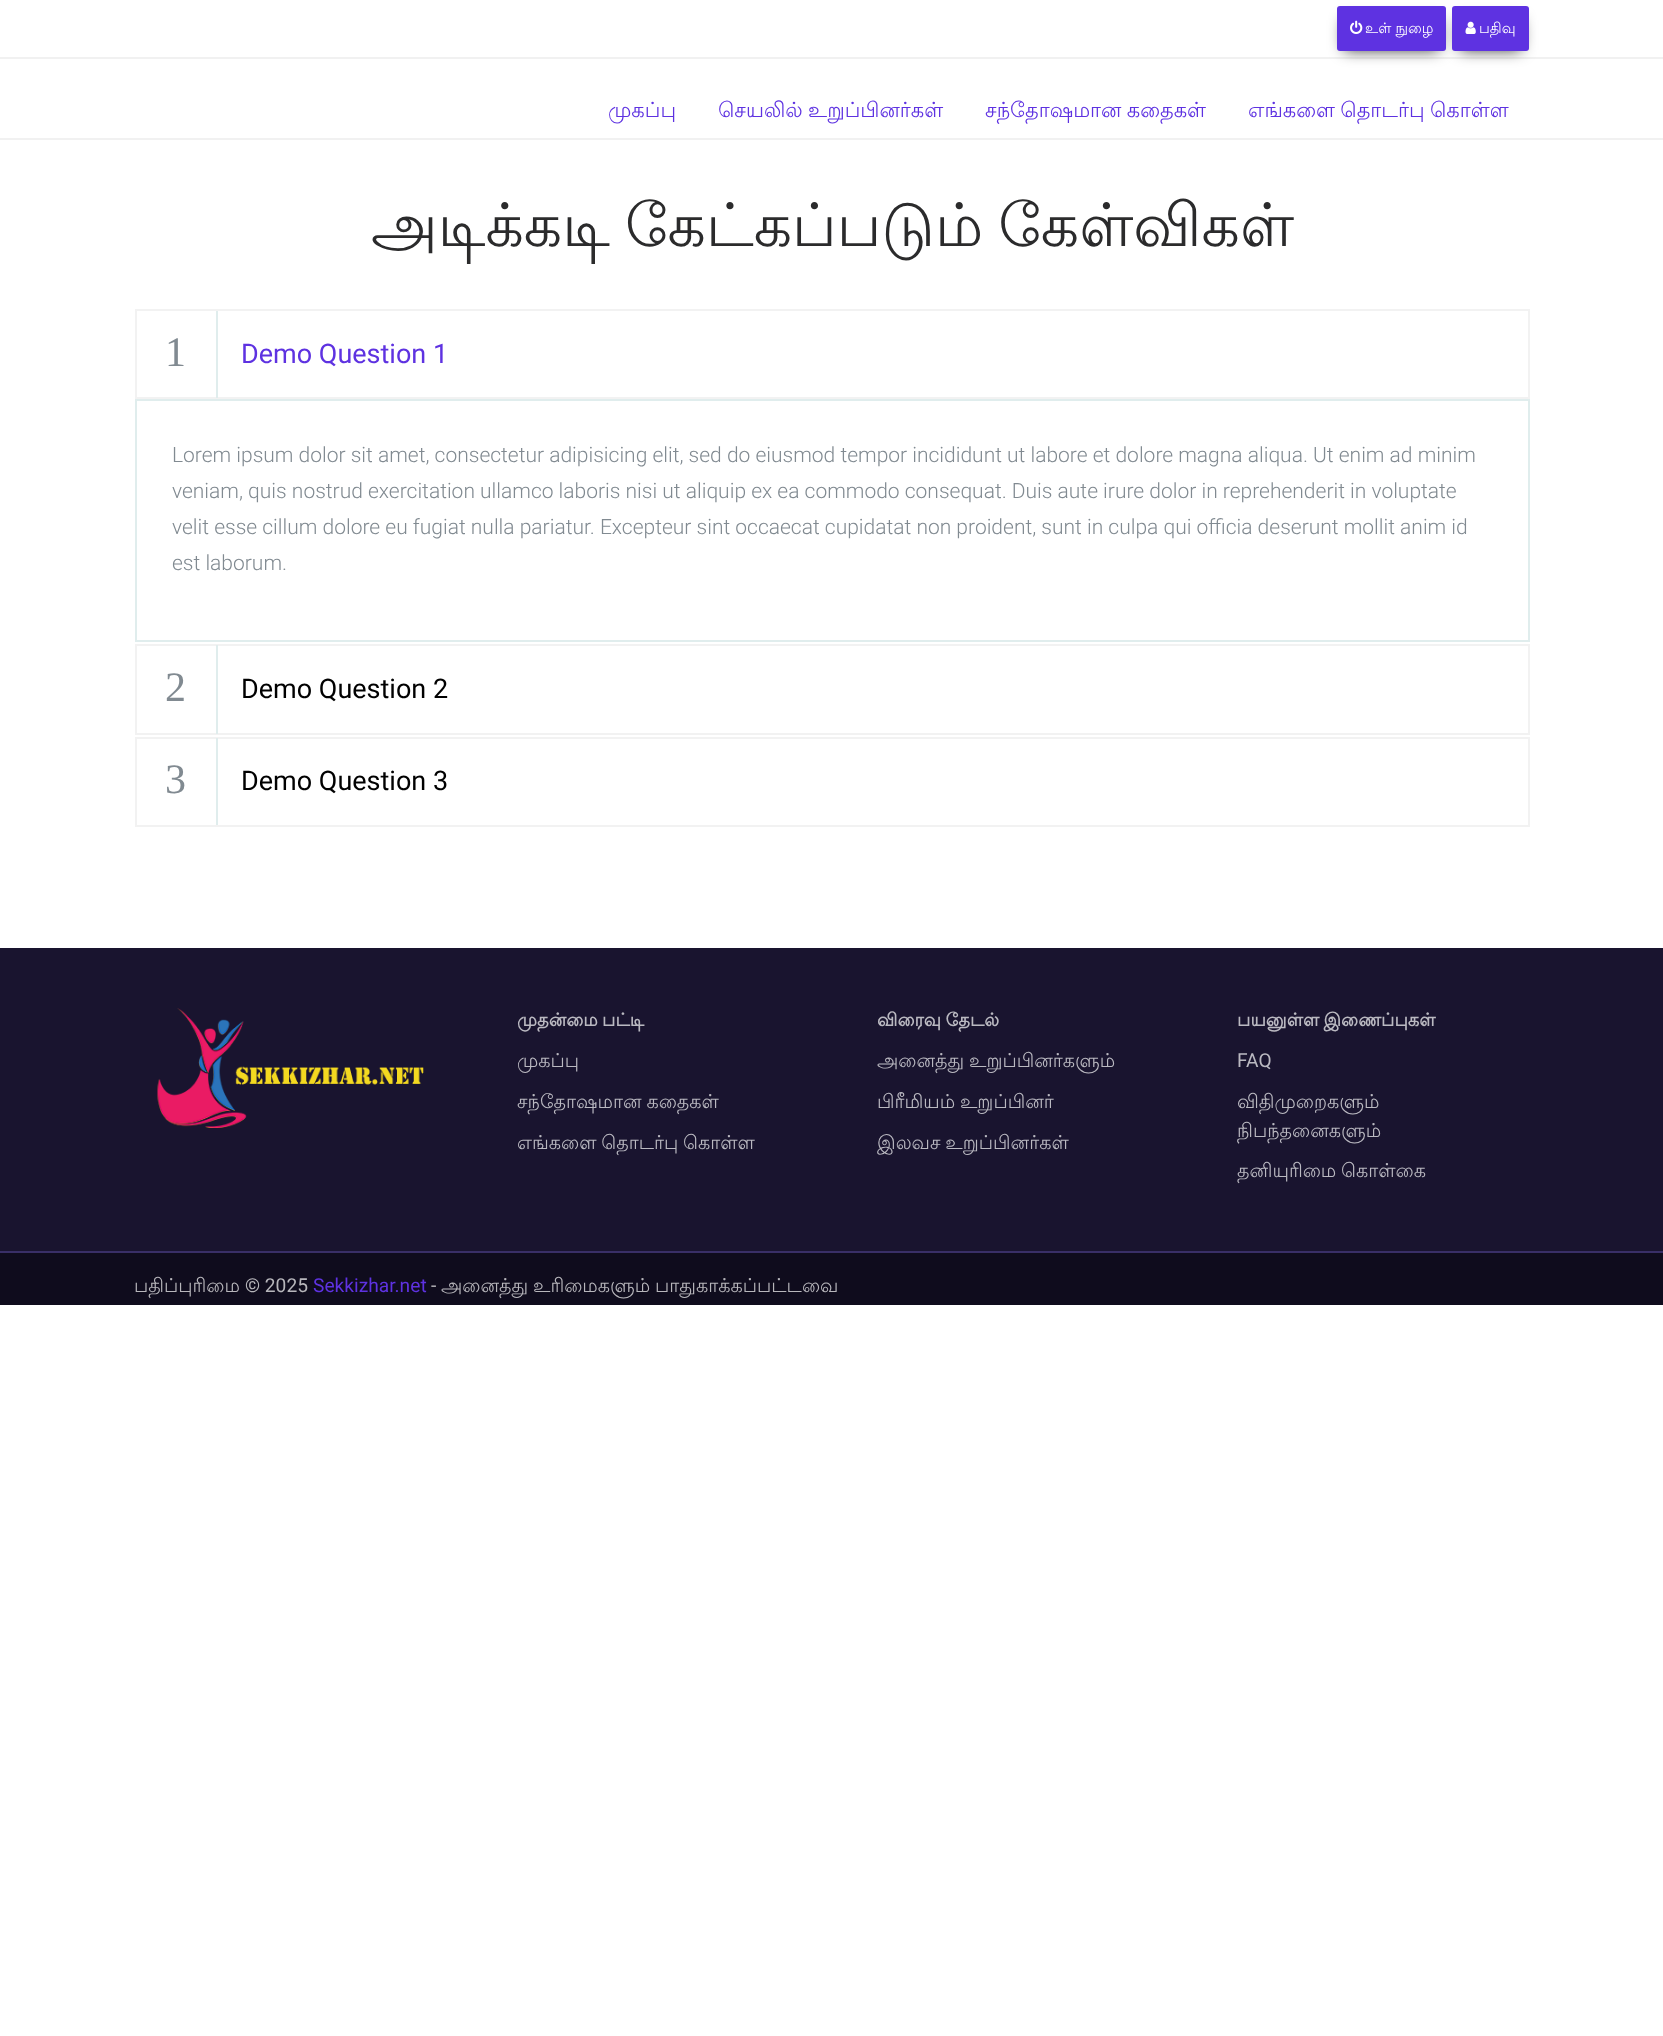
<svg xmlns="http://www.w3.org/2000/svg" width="1663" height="2036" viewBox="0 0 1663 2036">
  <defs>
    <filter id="blur1" x="-50%" y="-200%" width="200%" height="500%"><feGaussianBlur stdDeviation="7.5"/></filter>
  </defs>
  <rect width="100%" height="100%" fill="#ffffff"/>
  <rect x="0" y="57" width="1663" height="2" fill="#f1f1f1"/>
  <rect x="1344" y="20" width="95" height="30" fill="#000000" fill-opacity="0.8" filter="url(#blur1)"/>
  <rect x="1337" y="6" width="109" height="45" rx="3" fill="#5e32e1"/>
  <image x="1350" y="20" width="13" height="14" href="img1.png"/>
  <text x="1365" y="33" font-family="Lohit Tamil" font-size="14.5" fill="#ffffff">உள் நுழை</text>
  <rect x="1460" y="20" width="61" height="30" fill="#000000" fill-opacity="0.8" filter="url(#blur1)"/>
  <rect x="1452" y="6" width="77" height="45" rx="3" fill="#5e32e1"/>
  <image x="1465" y="21" width="11" height="13" href="img2.png"/>
  <text x="1479" y="33" font-family="Lohit Tamil" font-size="14.5" fill="#ffffff">பதிவு</text>
  <rect x="0" y="138" width="1663" height="2" fill="#f1f1f1"/>
  <text x="608" y="117" font-family="Lohit Tamil" font-size="21" fill="#5e32e1">முகப்பு</text>
  <text x="718" y="117" word-spacing="-1" font-family="Lohit Tamil" font-size="21" fill="#5e32e1">செயலில் உறுப்பினர்கள்</text>
  <text x="985" y="117" word-spacing="-1" font-family="Lohit Tamil" font-size="21" fill="#5e32e1">சந்தோஷமான கதைகள்</text>
  <text x="1248" y="117" word-spacing="-1" font-family="Lohit Tamil" font-size="21" fill="#5e32e1">எங்களை தொடர்பு கொள்ள</text>
  <text x="371" y="246" word-spacing="-3" font-family="Lohit Tamil" font-size="60" fill="#2b2b2c">அடிக்கடி கேட்கப்படும் கேள்விகள்</text>
  <rect x="136" y="310" width="1393" height="88" fill="none" stroke="#f2f2f2" stroke-width="2"/>
  <rect x="216" y="311" width="2" height="87" fill="#e0eded"/>
  <text x="165" y="366" font-family="Liberation Serif" font-size="42" fill="#818a91">1</text>
  <text x="241" y="363" font-family="Roboto" font-size="27" fill="#5e32e1">Demo Question 1</text>
  <rect x="136" y="400" width="1393" height="241" fill="none" stroke="#e0eded" stroke-width="2"/>
  <text x="172" y="462" font-family="Roboto" font-size="21" font-weight="300" fill="#818a91">Lorem ipsum dolor sit amet, consectetur adipisicing elit, sed do eiusmod tempor incididunt ut labore et dolore magna aliqua. Ut enim ad minim</text>
  <text x="172" y="498" font-family="Roboto" font-size="21" font-weight="300" fill="#818a91">veniam, quis nostrud exercitation ullamco laboris nisi ut aliquip ex ea commodo consequat. Duis aute irure dolor in reprehenderit in voluptate</text>
  <text x="172" y="534" font-family="Roboto" font-size="21" font-weight="300" fill="#818a91">velit esse cillum dolore eu fugiat nulla pariatur. Excepteur sint occaecat cupidatat non proident, sunt in culpa qui officia deserunt mollit anim id</text>
  <text x="172" y="570" font-family="Roboto" font-size="21" font-weight="300" fill="#818a91">est laborum.</text>
  <rect x="136" y="645" width="1393" height="89" fill="none" stroke="#f2f2f2" stroke-width="2"/>
  <rect x="216" y="645" width="2" height="89" fill="#e0eded"/>
  <text x="165" y="701" font-family="Liberation Serif" font-size="42" fill="#818a91">2</text>
  <text x="241" y="698" font-family="Roboto" font-size="27" fill="#000000">Demo Question 2</text>
  <rect x="136" y="738" width="1393" height="88" fill="none" stroke="#f2f2f2" stroke-width="2"/>
  <rect x="216" y="738" width="2" height="87" fill="#e0eded"/>
  <text x="165" y="793" font-family="Liberation Serif" font-size="42" fill="#818a91">3</text>
  <text x="241" y="790" font-family="Roboto" font-size="27" fill="#000000">Demo Question 3</text>
  <rect x="0" y="948" width="1663" height="303" fill="#19142f"/>
  <image x="157" y="1008" width="267" height="120" href="img3.png"/>
  <text x="517" y="1026" word-spacing="-1" font-family="Lohit Tamil" font-size="18" font-weight="bold" fill="#bab9c1">முதன்மை பட்டி</text>
  <text x="517" y="1067" font-family="Lohit Tamil" font-size="19.2" fill="#bab9c1">முகப்பு</text>
  <text x="517" y="1108" word-spacing="-1" font-family="Lohit Tamil" font-size="19.2" fill="#bab9c1">சந்தோஷமான கதைகள்</text>
  <text x="517" y="1149" word-spacing="-1" font-family="Lohit Tamil" font-size="19.2" fill="#bab9c1">எங்களை தொடர்பு கொள்ள</text>
  <text x="877" y="1026" word-spacing="-1" font-family="Lohit Tamil" font-size="18" font-weight="bold" fill="#bab9c1">விரைவு தேடல்</text>
  <text x="877" y="1067" word-spacing="-1" font-family="Lohit Tamil" font-size="19.2" fill="#bab9c1">அனைத்து உறுப்பினர்களும்</text>
  <text x="877" y="1108" word-spacing="-1" font-family="Lohit Tamil" font-size="19.2" fill="#bab9c1">பிரீமியம் உறுப்பினர்</text>
  <text x="877" y="1149" word-spacing="-1" font-family="Lohit Tamil" font-size="19.2" fill="#bab9c1">இலவச உறுப்பினர்கள்</text>
  <text x="1237" y="1026" word-spacing="-1" font-family="Lohit Tamil" font-size="18" font-weight="bold" fill="#bab9c1">பயனுள்ள இணைப்புகள்</text>
  <text x="1237" y="1067" font-family="Roboto" font-size="19.2" fill="#bab9c1">FAQ</text>
  <text x="1237" y="1108" font-family="Lohit Tamil" font-size="19.2" fill="#bab9c1">விதிமுறைகளும்</text>
  <text x="1237" y="1137" font-family="Lohit Tamil" font-size="19.2" fill="#bab9c1">நிபந்தனைகளும்</text>
  <text x="1237" y="1177" word-spacing="-1" font-family="Lohit Tamil" font-size="19.2" fill="#bab9c1">தனியுரிமை கொள்கை</text>
  <rect x="0" y="1253" width="1663" height="52" fill="#0f0c1d"/>
  <rect x="0" y="1251" width="1663" height="2" fill="#392f67"/>
  <text x="134" y="1292" font-family="Lohit Tamil" font-size="19.2" fill="#b7b6bb">பதிப்புரிமை</text>
  <text x="245" y="1292" font-family="Roboto" font-size="19.2" fill="#b7b6bb">© 2025</text>
  <text x="313" y="1292" font-family="Roboto" font-size="19.2" fill="#5e32e1">Sekkizhar.net</text>
  <text x="431" y="1292" font-family="Roboto" font-size="19.2" fill="#b7b6bb">-</text>
  <text x="441" y="1292" word-spacing="-1" font-family="Lohit Tamil" font-size="19.2" fill="#b7b6bb">அனைத்து உரிமைகளும் பாதுகாக்கப்பட்டவை</text>
</svg>
